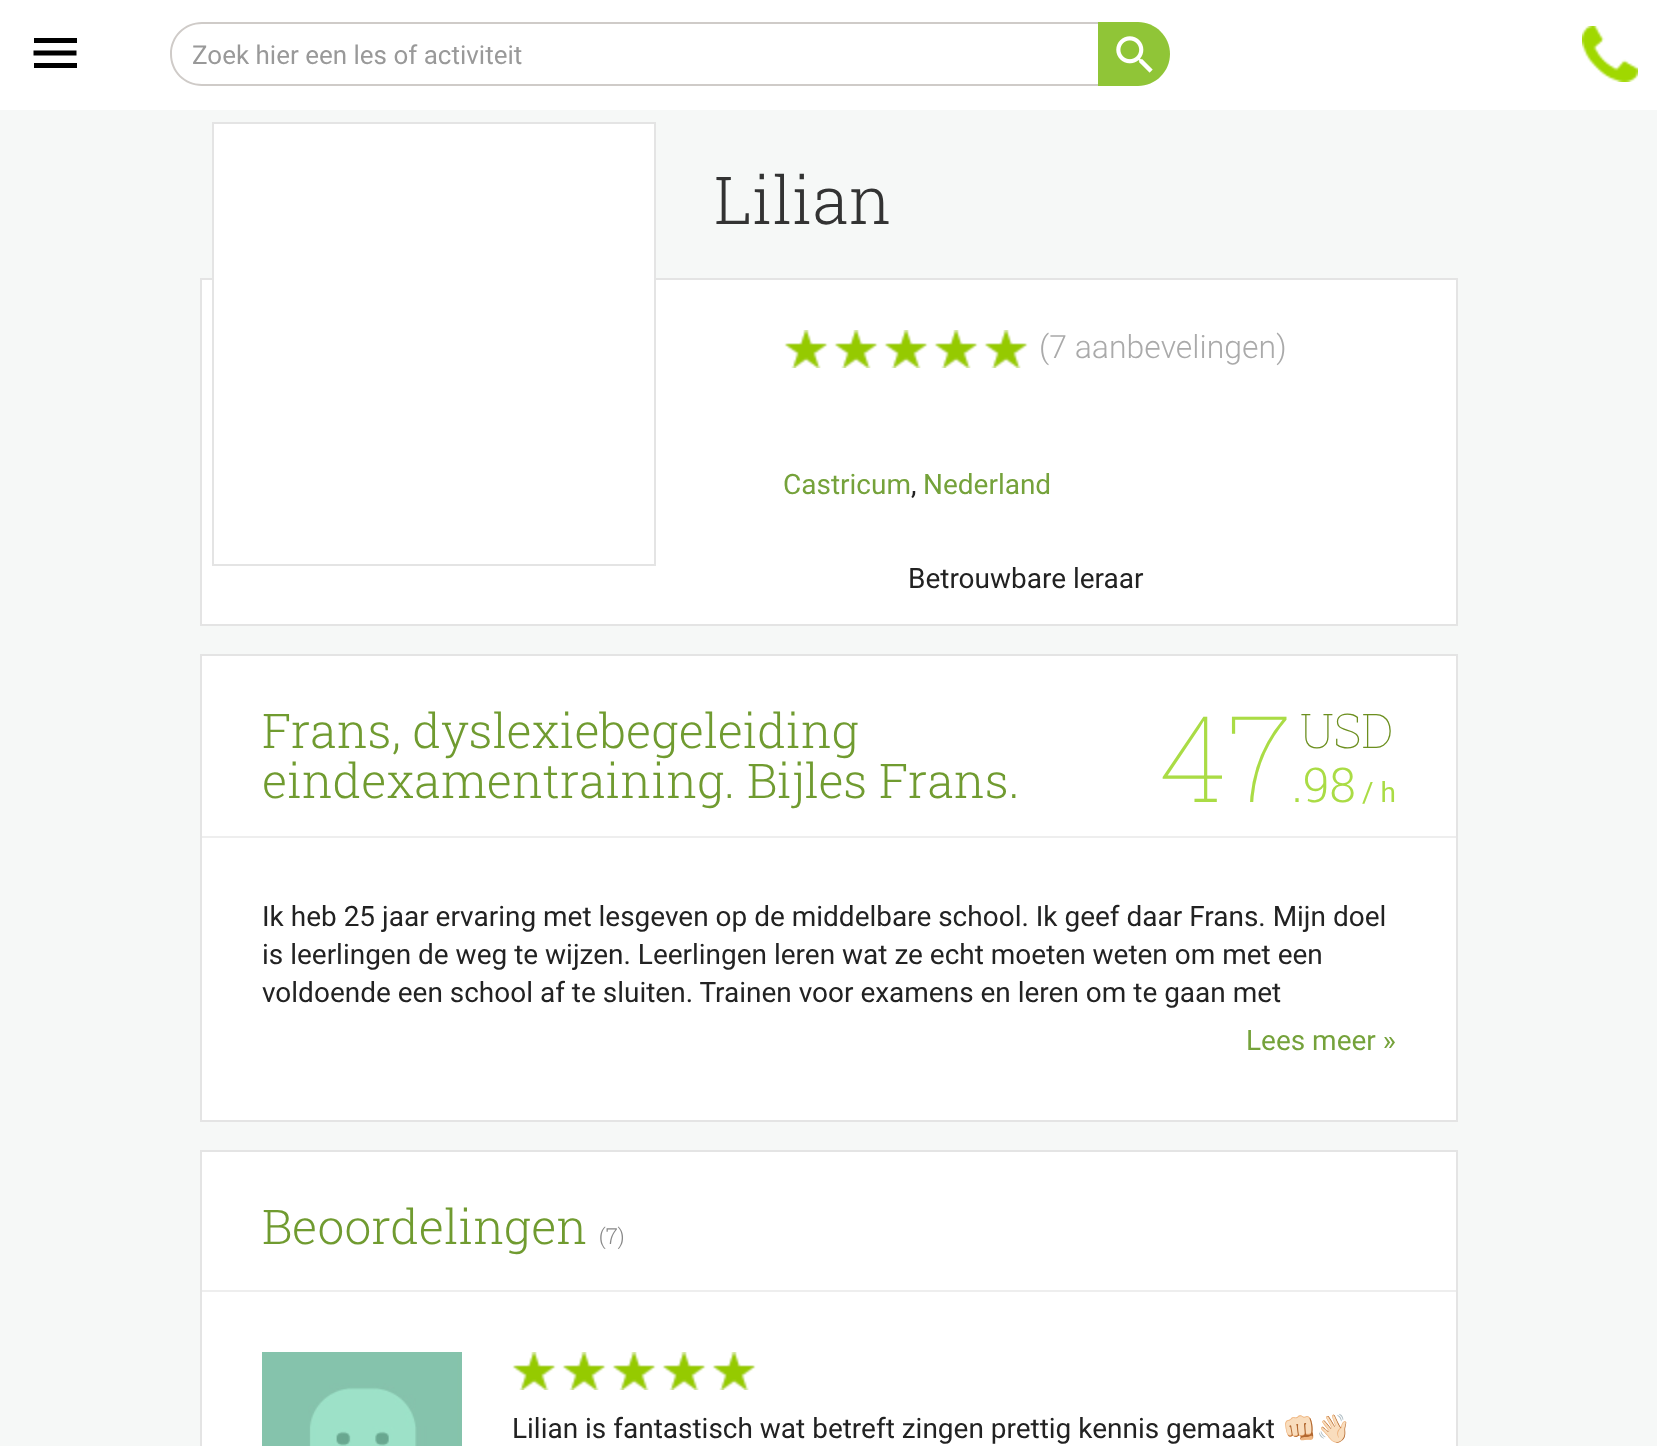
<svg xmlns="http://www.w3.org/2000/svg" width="1657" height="1446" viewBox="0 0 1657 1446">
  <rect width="100%" height="100%" fill="#f6f8f7"/>
  <rect x="0" y="0" width="1657" height="110" fill="#ffffff"/>
  <rect x="34" y="38" width="43" height="5" fill="#000000"/>
  <path d="M36 53H74" fill="none" stroke="#000000" stroke-width="5" stroke-linecap="square"/>
  <rect x="34" y="63" width="43" height="5" fill="#000000"/>
  <path d="M202 22H1098V86H202C184 86 170 72 170 54C170 36 184 22 202 22ZM202 24H1098V84H202C185 84 172 71 172 54C172 37 185 24 202 24Z" fill="#cfcbc8" fill-rule="evenodd"/>
  <text x="192" y="64" font-family="Roboto" font-size="26" fill="#999999">Zoek hier een les of activiteit</text>
  <path d="M1098 22H1138C1155.5 22 1170 36.5 1170 54C1170 71.5 1155.5 86 1138 86H1098Z" fill="#90c537"/>
  <image x="1116" y="36" width="37" height="37" href="img1.png"/>
  <image x="1582" y="26" width="56" height="56" href="img2.png"/>
  <text x="714" y="224" font-family="Roboto Slab" font-size="66" font-weight="300" fill="#333333">Lilian</text>
  <rect x="201" y="279" width="1256" height="346" fill="#ffffff" stroke="#e4e4e4" stroke-width="2"/>
  <rect x="214" y="124" width="440" height="156" fill="#ffffff"/>
  <rect x="213" y="123" width="442" height="442" fill="none" stroke="#e4e4e4" stroke-width="2"/>
  <image x="785" y="330" width="242" height="38" href="img3.png"/>
  <image x="784" y="330" width="244" height="38" href="img4.png"/>
  <text x="1039" y="358" font-family="Roboto" font-size="32" font-weight="300" fill="#aaaaaa">(7 aanbevelingen)</text>
  <text x="783" y="494" font-family="Roboto" font-size="28" fill="#75a23b">Castricum</text>
  <text x="911" y="494" font-family="Roboto" font-size="28" fill="#222222">,</text>
  <text x="923" y="494" font-family="Roboto" font-size="28" fill="#75a23b">Nederland</text>
  <text x="908" y="588" font-family="Roboto" font-size="28" fill="#222222">Betrouwbare leraar</text>
  <rect x="201" y="655" width="1256" height="466" fill="#ffffff" stroke="#e4e4e4" stroke-width="2"/>
  <rect x="202" y="836" width="1254" height="2" fill="#eeeeee"/>
  <text x="262" y="748" font-family="Roboto Slab" font-size="48" font-weight="300" fill="#709b30">Frans, dyslexiebegeleiding</text>
  <text x="262" y="798" font-family="Roboto Slab" font-size="48" font-weight="300" fill="#709b30">eindexamentraining. Bijles Frans.</text>
  <text x="1159" y="802" font-family="Roboto Slab" font-size="120" font-weight="100" fill="#aadc45">47</text>
  <text x="1300" y="748" font-family="Roboto Slab" font-size="48" font-weight="100" fill="#6c8f1f">USD</text>
  <text x="1292" y="802" font-family="Roboto Slab" font-size="48" font-weight="300" fill="#aadc45">.98</text>
  <text x="1362" y="802" font-family="Roboto" font-size="28" fill="#aadc45">/ h</text>
  <text x="262" y="926" font-family="Roboto" font-size="28" fill="#222222">Ik heb 25 jaar ervaring met lesgeven op de middelbare school. Ik geef daar Frans. Mijn doel</text>
  <text x="262" y="964" font-family="Roboto" font-size="28" fill="#222222">is leerlingen de weg te wijzen. Leerlingen leren wat ze echt moeten weten om met een</text>
  <text x="262" y="1002" font-family="Roboto" font-size="28" fill="#222222">voldoende een school af te sluiten. Trainen voor examens en leren om te gaan met</text>
  <text x="1246" y="1050" font-family="Roboto" font-size="28" fill="#75a23b">Lees meer »</text>
  <rect x="201" y="1151" width="1256" height="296" fill="#ffffff" stroke="#e4e4e4" stroke-width="2"/>
  <rect x="202" y="1290" width="1254" height="2" fill="#eeeeee"/>
  <text x="262" y="1244" font-family="Roboto Slab" font-size="48" font-weight="300" fill="#709b30">Beoordelingen</text>
  <text x="599" y="1244" font-family="Roboto Slab" font-size="22" font-weight="300" fill="#888888">(7)</text>
  <image x="262" y="1352" width="200" height="94" href="img5.png"/>
  <image x="513" y="1352" width="242" height="38" href="img3.png"/>
  <image x="512" y="1352" width="244" height="38" href="img4.png"/>
  <text x="512" y="1438" font-family="Roboto" font-size="28" fill="#222222">Lilian is fantastisch wat betreft zingen prettig kennis gemaakt</text>
  <text x="1282" y="1438" font-family="Noto Color Emoji" font-size="28" fill="#222222">👊🏻👋🏻</text>
</svg>
